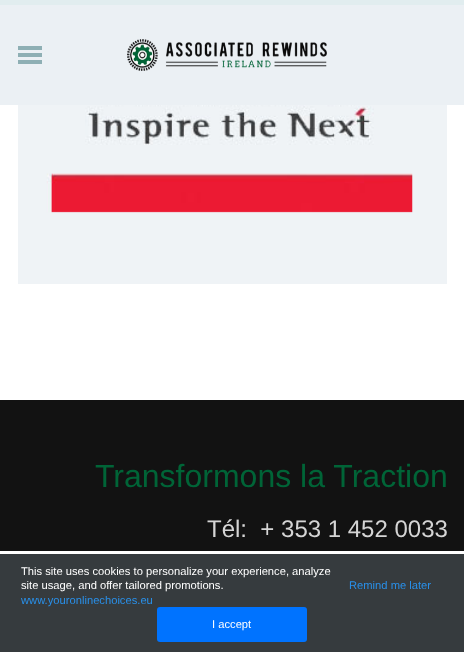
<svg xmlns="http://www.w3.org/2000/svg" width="464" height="652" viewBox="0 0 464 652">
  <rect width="100%" height="100%" fill="#ffffff"/>
  <rect x="0" y="5" width="464" height="100" fill="#ebf0f4"/>
  <rect x="0" y="0" width="464" height="5" fill="#e1edef"/>
  <rect x="18" y="46" width="24" height="4" fill="#8eafb4"/>
  <rect x="18" y="53" width="24" height="4" fill="#8eafb4"/>
  <rect x="18" y="60" width="24" height="4" fill="#8eafb4"/>
  <image x="127" y="39" width="200" height="32" href="img1.png"/>
  <image x="18" y="105" width="429" height="179" href="img2.png"/>
  <rect x="0" y="400" width="464" height="151" fill="#121212"/>
  <text x="95" y="487" font-family="Liberation Sans" font-size="32" fill="#006437">Transformons la Traction</text>
  <text x="207" y="537" font-family="Liberation Sans" font-size="24" fill="#d5d5d5" xml:space="preserve">Tél:  + 353 1 452 0033</text>
  <rect x="0" y="554" width="464" height="98" fill="#363b3e"/>
  <text x="21" y="575" font-family="Liberation Sans" font-size="11.2" fill="#ffffff">This site uses cookies to personalize your experience, analyze</text>
  <text x="21" y="589" font-family="Liberation Sans" font-size="11.2" fill="#ffffff">site usage, and offer tailored promotions.</text>
  <text x="21" y="604" font-family="Liberation Sans" font-size="11.2" fill="#2990ea">www.youronlinechoices.eu</text>
  <text x="349" y="589" font-family="Liberation Sans" font-size="11.2" fill="#2990ea">Remind me later</text>
  <rect x="157" y="607" width="150" height="35" rx="3" fill="#0073ff"/>
  <text x="212" y="628" font-family="Liberation Sans" font-size="11.2" fill="#ffffff">I accept</text>
</svg>
